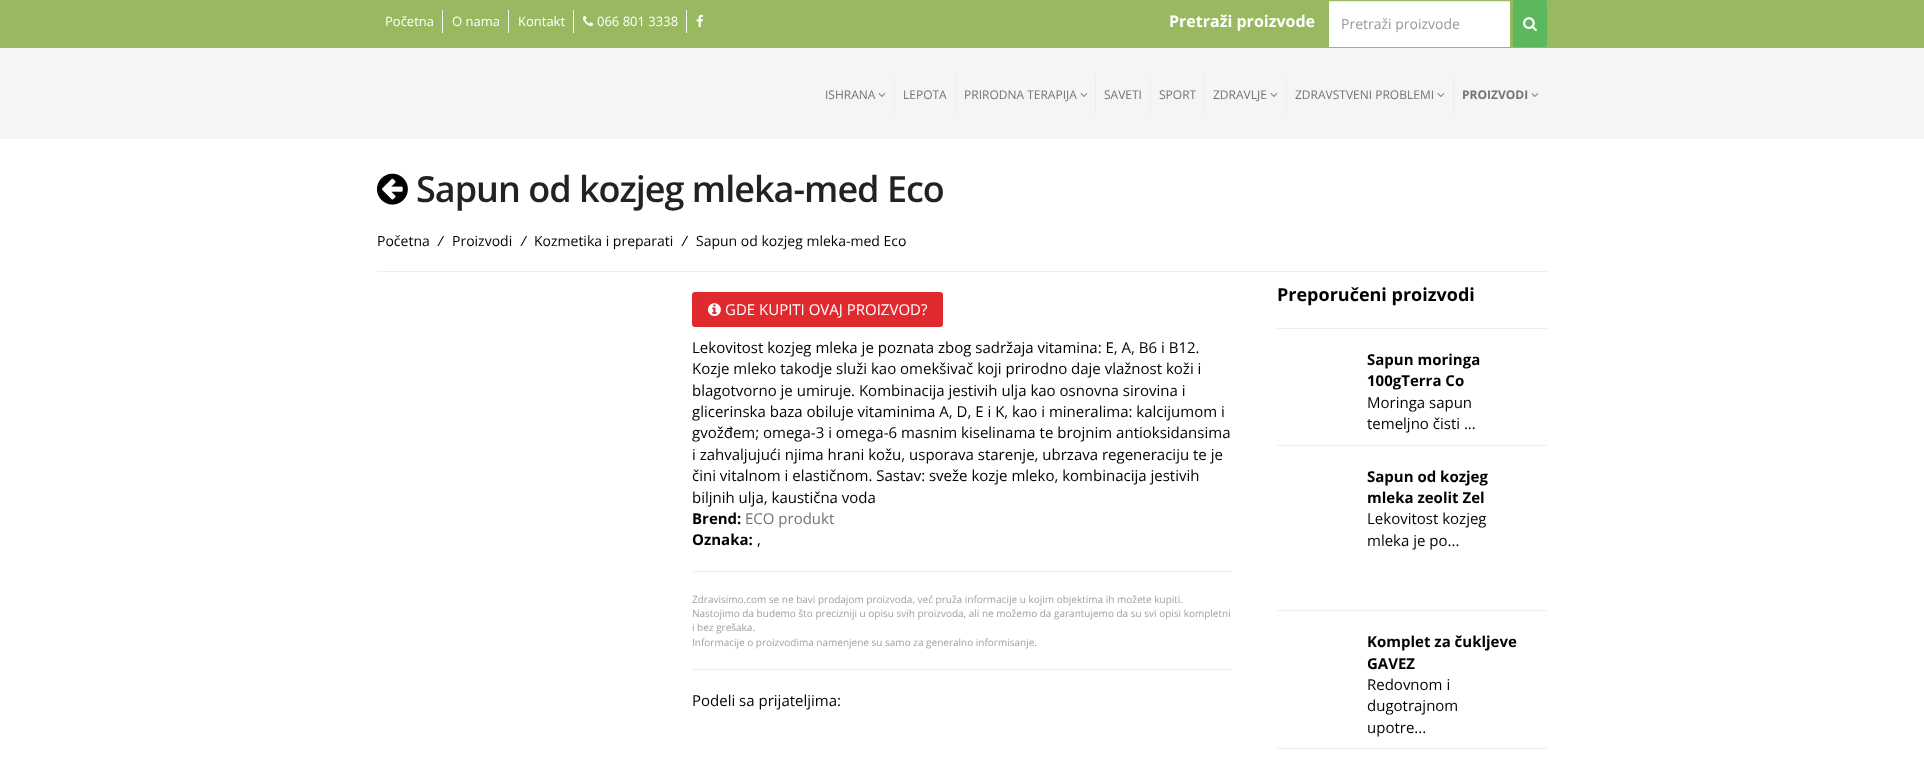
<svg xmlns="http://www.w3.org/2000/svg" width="1924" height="763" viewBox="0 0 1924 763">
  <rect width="100%" height="100%" fill="#ffffff"/>
  <rect x="0" y="0" width="1924" height="48" fill="#98b960"/>
  <rect x="0" y="48" width="1924" height="91" fill="#f5f5f5"/>
  <rect x="442" y="10" width="1" height="23" fill="#f5f5f5"/>
  <text x="385" y="26" font-family="Open Sans" font-size="13" fill="#ffffff">Početna</text>
  <rect x="508" y="10" width="1" height="23" fill="#f5f5f5"/>
  <text x="452" y="26" font-family="Open Sans" font-size="13" fill="#ffffff">O nama</text>
  <rect x="573" y="10" width="1" height="23" fill="#f5f5f5"/>
  <text x="518" y="26" font-family="Open Sans" font-size="13" fill="#ffffff">Kontakt</text>
  <rect x="686" y="10" width="1" height="23" fill="#f5f5f5"/>
  <image x="583" y="15" width="11" height="11" href="img1.png"/>
  <text x="597" y="26" font-family="Open Sans" font-size="13" fill="#ffffff">066 801 3338</text>
  <image x="696" y="14" width="7" height="13" href="img2.png"/>
  <text x="1169" y="27" font-family="Open Sans" font-size="16" font-weight="bold" fill="#ffffff">Pretraži proizvode</text>
  <rect x="1329" y="2" width="181" height="45" fill="#ffffff"/>
  <rect x="1329" y="1" width="181" height="1" fill="#ececec"/>
  <text x="1341" y="29" font-family="Open Sans" font-size="14" fill="#999999">Pretraži proizvode</text>
  <rect x="1513" y="0" width="34" height="47" rx="3" fill="#5cb85c"/>
  <image x="1523" y="17" width="14" height="15" href="img3.png"/>
  <rect x="894" y="75" width="1" height="40" fill="#eeeeee"/>
  <text x="825" y="99" font-family="Open Sans" font-size="12" fill="#747477">ISHRANA</text>
  <image x="878" y="93" width="8" height="4" href="img4.png"/>
  <rect x="955" y="75" width="1" height="40" fill="#eeeeee"/>
  <text x="903" y="99" font-family="Open Sans" font-size="12" fill="#747477">LEPOTA</text>
  <rect x="1095" y="75" width="1" height="40" fill="#eeeeee"/>
  <text x="964" y="99" font-family="Open Sans" font-size="12" fill="#747477">PRIRODNA TERAPIJA</text>
  <image x="1080" y="93" width="8" height="4" href="img4.png"/>
  <rect x="1150" y="75" width="1" height="40" fill="#eeeeee"/>
  <text x="1104" y="99" font-family="Open Sans" font-size="12" fill="#747477">SAVETI</text>
  <rect x="1204" y="75" width="1" height="40" fill="#eeeeee"/>
  <text x="1159" y="99" font-family="Open Sans" font-size="12" fill="#747477">SPORT</text>
  <rect x="1286" y="75" width="1" height="40" fill="#eeeeee"/>
  <text x="1213" y="99" font-family="Open Sans" font-size="12" fill="#747477">ZDRAVLJE</text>
  <image x="1270" y="93" width="8" height="4" href="img4.png"/>
  <rect x="1453" y="75" width="1" height="40" fill="#eeeeee"/>
  <text x="1295" y="99" font-family="Open Sans" font-size="12" fill="#747477">ZDRAVSTVENI PROBLEMI</text>
  <image x="1437" y="93" width="8" height="4" href="img4.png"/>
  <text x="1462" y="99" font-family="Open Sans" font-size="12" font-weight="bold" fill="#747477">PROIZVODI</text>
  <image x="1531" y="93" width="8" height="4" href="img4.png"/>
  <image x="377" y="173" width="31" height="32" href="img5.png"/>
  <text x="416" y="202" font-family="Open Sans" font-size="36" font-weight="600" letter-spacing="-1" fill="#222222">Sapun od kozjeg mleka-med Eco</text>
  <text x="377" y="246" font-family="Open Sans" font-size="14" fill="#000000">Početna</text>
  <text x="438" y="246" font-family="Open Sans" font-size="14" font-style="italic" fill="#000000">/</text>
  <text x="452" y="246" font-family="Open Sans" font-size="14" fill="#000000">Proizvodi</text>
  <text x="521" y="246" font-family="Open Sans" font-size="14" font-style="italic" fill="#000000">/</text>
  <text x="534" y="246" font-family="Open Sans" font-size="14" fill="#000000">Kozmetika i preparati</text>
  <text x="682" y="246" font-family="Open Sans" font-size="14" font-style="italic" fill="#000000">/</text>
  <text x="696" y="246" font-family="Open Sans" font-size="14" fill="#000000">Sapun od kozjeg mleka-med Eco</text>
  <rect x="377" y="271" width="1170" height="1" fill="#eeeeee"/>
  <rect x="692" y="292" width="251" height="35" rx="3" fill="#e02a30"/>
  <image x="708" y="303" width="13" height="14" href="img6.png"/>
  <text x="725" y="315" font-family="Open Sans" font-size="15" fill="#ffffff">GDE KUPITI OVAJ PROIZVOD?</text>
  <text x="692" y="353" font-family="Open Sans" font-size="15" fill="#000000">Lekovitost kozjeg mleka je poznata zbog sadržaja vitamina: E, A, B6 i B12.</text>
  <text x="692" y="374" font-family="Open Sans" font-size="15" fill="#000000">Kozje mleko takodje služi kao omekšivač koji prirodno daje vlažnost koži i</text>
  <text x="692" y="396" font-family="Open Sans" font-size="15" fill="#000000">blagotvorno je umiruje. Kombinacija jestivih ulja kao osnovna sirovina i</text>
  <text x="692" y="417" font-family="Open Sans" font-size="15" fill="#000000">glicerinska baza obiluje vitaminima A, D, E i K, kao i mineralima: kalcijumom i</text>
  <text x="692" y="438" font-family="Open Sans" font-size="15" fill="#000000">gvožđem; omega-3 i omega-6 masnim kiselinama te brojnim antioksidansima</text>
  <text x="692" y="460" font-family="Open Sans" font-size="15" fill="#000000">i zahvaljujući njima hrani kožu, usporava starenje, ubrzava regeneraciju te je</text>
  <text x="692" y="481" font-family="Open Sans" font-size="15" fill="#000000">čini vitalnom i elastičnom. Sastav: sveže kozje mleko, kombinacija jestivih</text>
  <text x="692" y="503" font-family="Open Sans" font-size="15" fill="#000000">biljnih ulja, kaustična voda</text>
  <text x="692" y="524" font-family="Open Sans" font-size="15" font-weight="bold" fill="#000000">Brend:</text>
  <text x="745" y="524" font-family="Open Sans" font-size="15" fill="#747477">ECO produkt</text>
  <text x="692" y="545" font-family="Open Sans" font-size="15" font-weight="bold" fill="#000000">Oznaka:</text>
  <text x="757" y="545" font-family="Open Sans" font-size="15" fill="#000000">,</text>
  <rect x="692" y="571" width="540" height="1" fill="#eeeeee"/>
  <text x="692" y="603" font-family="Open Sans" font-size="10" fill="#a0a0a0">Zdravisimo.com se ne bavi prodajom proizvoda, već pruža informacije u kojim objektima ih možete kupiti.</text>
  <text x="692" y="617" font-family="Open Sans" font-size="10" fill="#a0a0a0">Nastojimo da budemo što precizniji u opisu svih proizvoda, ali ne možemo da garantujemo da su svi opisi kompletni</text>
  <text x="692" y="631" font-family="Open Sans" font-size="10" fill="#a0a0a0">i bez grešaka.</text>
  <text x="692" y="646" font-family="Open Sans" font-size="10" fill="#a0a0a0">Informacije o proizvodima namenjene su samo za generalno informisanje.</text>
  <rect x="692" y="669" width="540" height="1" fill="#eeeeee"/>
  <text x="692" y="706" font-family="Open Sans" font-size="15" fill="#000000">Podeli sa prijateljima:</text>
  <text x="1277" y="301" font-family="Open Sans" font-size="18" font-weight="bold" fill="#000000">Preporučeni proizvodi</text>
  <rect x="1277" y="328" width="270" height="1" fill="#eeeeee"/>
  <text x="1367" y="365" font-family="Open Sans" font-size="15" font-weight="bold" fill="#000000">Sapun moringa</text>
  <text x="1367" y="386" font-family="Open Sans" font-size="15" font-weight="bold" fill="#000000">100gTerra Co</text>
  <text x="1367" y="408" font-family="Open Sans" font-size="15" fill="#000000">Moringa sapun</text>
  <text x="1367" y="429" font-family="Open Sans" font-size="15" fill="#000000">temeljno čisti ...</text>
  <rect x="1277" y="445" width="270" height="1" fill="#eeeeee"/>
  <text x="1367" y="482" font-family="Open Sans" font-size="15" font-weight="bold" fill="#000000">Sapun od kozjeg</text>
  <text x="1367" y="503" font-family="Open Sans" font-size="15" font-weight="bold" fill="#000000">mleka zeolit Zel</text>
  <text x="1367" y="524" font-family="Open Sans" font-size="15" fill="#000000">Lekovitost kozjeg</text>
  <text x="1367" y="546" font-family="Open Sans" font-size="15" fill="#000000">mleka je po...</text>
  <rect x="1277" y="610" width="270" height="1" fill="#eeeeee"/>
  <text x="1367" y="647" font-family="Open Sans" font-size="15" font-weight="bold" fill="#000000">Komplet za čukljeve</text>
  <text x="1367" y="669" font-family="Open Sans" font-size="15" font-weight="bold" fill="#000000">GAVEZ</text>
  <text x="1367" y="690" font-family="Open Sans" font-size="15" fill="#000000">Redovnom i</text>
  <text x="1367" y="711" font-family="Open Sans" font-size="15" fill="#000000">dugotrajnom</text>
  <text x="1367" y="733" font-family="Open Sans" font-size="15" fill="#000000">upotre...</text>
  <rect x="1277" y="748" width="270" height="1" fill="#eeeeee"/>
</svg>
